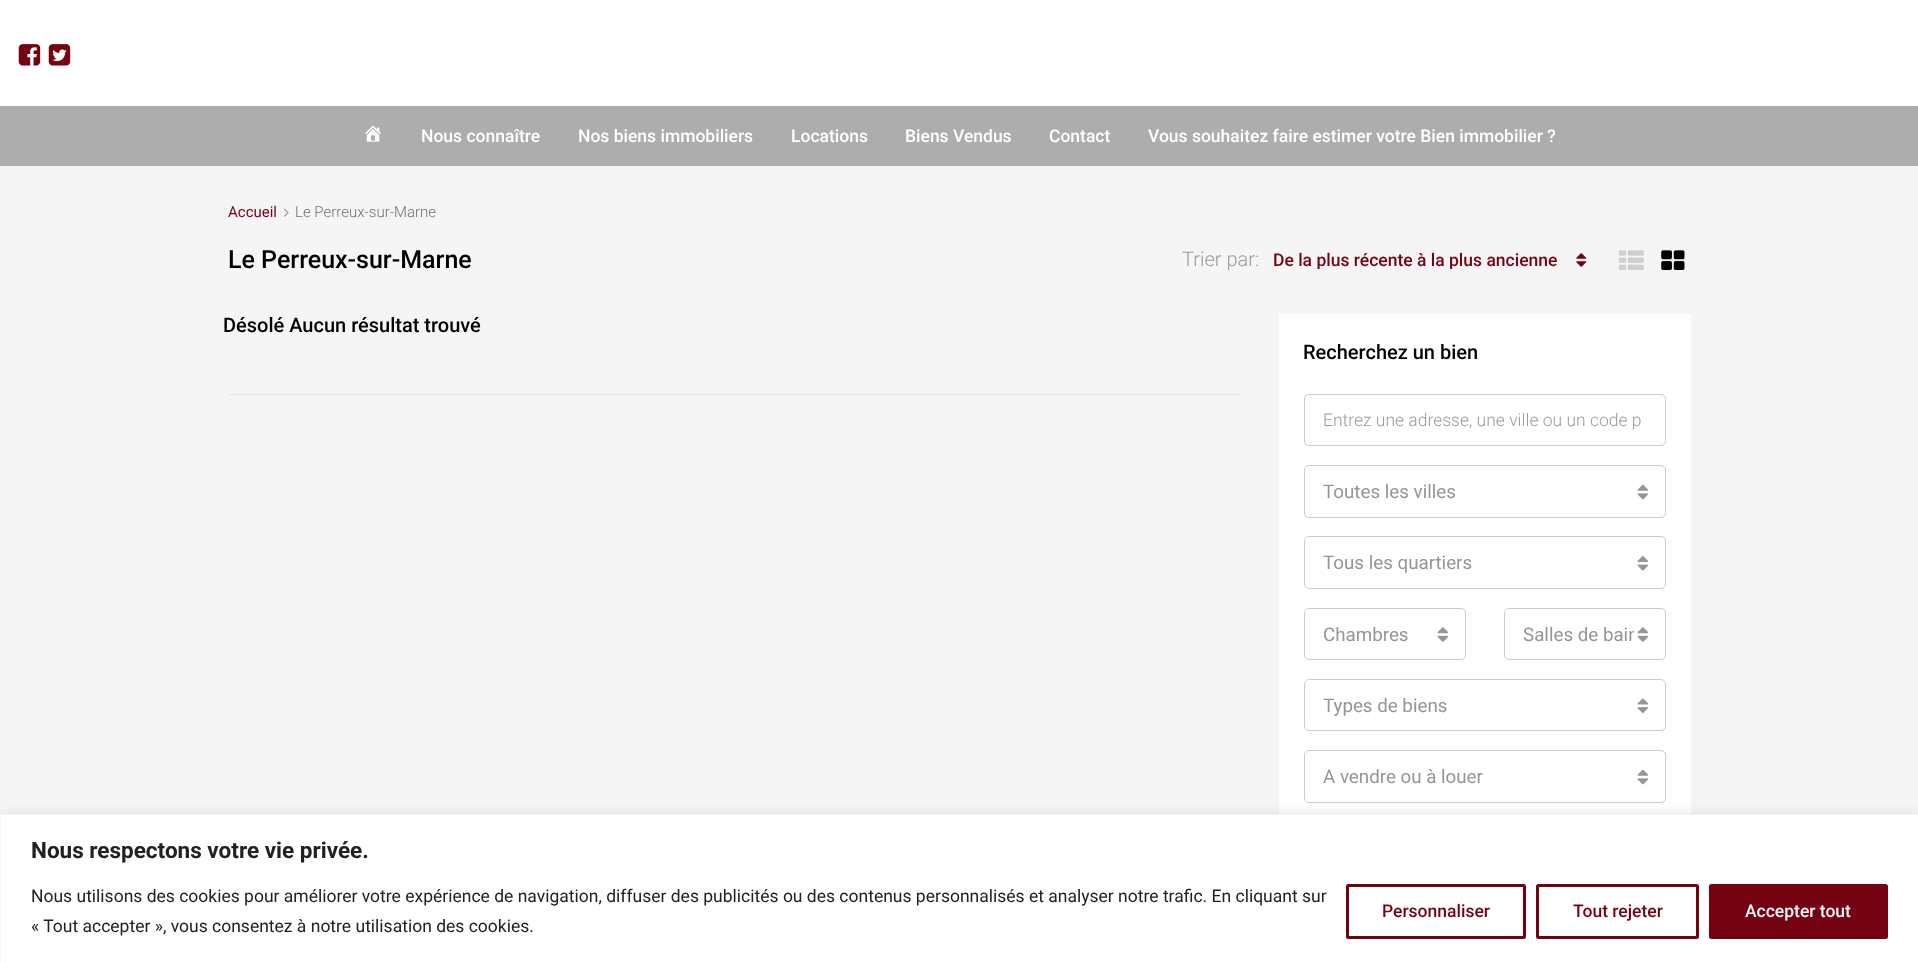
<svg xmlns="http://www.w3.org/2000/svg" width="1918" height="962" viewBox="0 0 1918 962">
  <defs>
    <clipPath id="clip1"><rect x="1273" y="251" width="298" height="18"/></clipPath>
    <clipPath id="clip2"><rect x="1524" y="623" width="110" height="26"/></clipPath>
    <filter id="blur1" x="-50%" y="-200%" width="200%" height="500%"><feGaussianBlur stdDeviation="6"/></filter>
  </defs>
  <rect width="100%" height="100%" fill="#f5f5f5"/>
  <rect x="0" y="0" width="1918" height="106" fill="#ffffff"/>
  <image x="18" y="44" width="23" height="22" href="img1.png"/>
  <image x="48" y="44" width="23" height="22" href="img2.png"/>
  <rect x="0" y="106" width="1918" height="60" fill="#adadad"/>
  <image x="365" y="125" width="16" height="17" href="img3.png"/>
  <text x="421" y="142" font-family="Roboto" font-size="17.5" font-weight="500" fill="#ffffff">Nous connaître</text>
  <text x="578" y="142" font-family="Roboto" font-size="17.5" font-weight="500" fill="#ffffff">Nos biens immobiliers</text>
  <text x="791" y="142" font-family="Roboto" font-size="17.5" font-weight="500" fill="#ffffff">Locations</text>
  <text x="905" y="142" font-family="Roboto" font-size="17.5" font-weight="500" fill="#ffffff">Biens Vendus</text>
  <text x="1049" y="142" font-family="Roboto" font-size="17.5" font-weight="500" fill="#ffffff">Contact</text>
  <text x="1148" y="142" font-family="Roboto" font-size="17.5" font-weight="500" fill="#ffffff">Vous souhaitez faire estimer votre Bien immobilier ?</text>
  <text x="228" y="217" font-family="Roboto" font-size="15" fill="#750210">Accueil</text>
  <image x="284" y="208" width="5" height="9" href="img4.png"/>
  <text x="295" y="217" font-family="Roboto" font-size="15" font-weight="300" fill="#707070">Le Perreux-sur-Marne</text>
  <text x="228" y="268" font-family="Roboto" font-size="25" font-weight="500" fill="#000000">Le Perreux-sur-Marne</text>
  <text x="1182" y="266" font-family="Roboto" font-size="20" font-weight="300" fill="#9b9b9b">Trier par:</text>
  <g clip-path="url(#clip1)">
    <text x="1273" y="266" font-family="Roboto" font-size="17.5" font-weight="500" fill="#750210">De la plus récente à la plus ancienne</text>
  </g>
  <image x="1576" y="253" width="11" height="14" href="img5.png"/>
  <image x="1618" y="250" width="26" height="20" href="img6.png"/>
  <image x="1661" y="250" width="24" height="20" href="img7.png"/>
  <text x="223" y="332" font-family="Roboto" font-size="20" font-weight="500" fill="#000000">Désolé Aucun résultat trouvé</text>
  <rect x="229" y="394" width="1012" height="1" fill="#e4e4e4"/>
  <rect x="1279" y="314" width="412" height="500" fill="#ffffff"/>
  <text x="1303" y="359" font-family="Roboto" font-size="20" font-weight="500" fill="#000000">Recherchez un bien</text>
  <rect x="1304.5" y="394.5" width="361" height="51" rx="4.5" fill="none" stroke="#cccccc"/>
  <text x="1323" y="426" font-family="Roboto" font-size="17.5" font-weight="300" fill="#9b9b9b">Entrez une adresse, une ville ou un code p</text>
  <rect x="1304.5" y="465.5" width="361" height="52" rx="4.5" fill="none" stroke="#cccccc"/>
  <text x="1323" y="498" font-family="Roboto" font-size="18.75" fill="#959595">Toutes les villes</text>
  <image x="1637" y="484" width="12" height="16" href="img8.png"/>
  <rect x="1304.5" y="536.5" width="361" height="52" rx="4.5" fill="none" stroke="#cccccc"/>
  <text x="1323" y="569" font-family="Roboto" font-size="18.75" fill="#959595">Tous les quartiers</text>
  <image x="1637" y="556" width="12" height="15" href="img9.png"/>
  <rect x="1304.5" y="608.5" width="161" height="51" rx="4.5" fill="none" stroke="#cccccc"/>
  <text x="1323" y="641" font-family="Roboto" font-size="18.75" fill="#959595">Chambres</text>
  <image x="1437" y="627" width="12" height="15" href="img10.png"/>
  <rect x="1504.5" y="608.5" width="161" height="51" rx="4.5" fill="none" stroke="#cccccc"/>
  <g clip-path="url(#clip2)">
    <text x="1523" y="641" font-family="Roboto" font-size="18.75" fill="#959595">Salles de bain</text>
  </g>
  <image x="1637" y="627" width="12" height="15" href="img10.png"/>
  <rect x="1304.5" y="679.5" width="361" height="51" rx="4.5" fill="none" stroke="#cccccc"/>
  <text x="1323" y="712" font-family="Roboto" font-size="18.75" fill="#959595">Types de biens</text>
  <image x="1637" y="698" width="12" height="16" href="img11.png"/>
  <rect x="1304.5" y="750.5" width="361" height="52" rx="4.5" fill="none" stroke="#cccccc"/>
  <text x="1323" y="783" font-family="Roboto" font-size="18.75" fill="#959595">A vendre ou à louer</text>
  <image x="1637" y="769" width="12" height="16" href="img8.png"/>
  <rect x="0" y="813" width="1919" height="148" fill="#acabab" fill-opacity="0.3" filter="url(#blur1)"/>
  <rect x="0.5" y="814.5" width="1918" height="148" fill="#ffffff" stroke="#f4f4f4"/>
  <text x="31" y="858" font-family="Roboto" font-size="22.5" font-weight="bold" fill="#212121">Nous respectons votre vie privée.</text>
  <text x="31" y="902" font-family="Roboto" font-size="17.5" fill="#212121">Nous utilisons des cookies pour améliorer votre expérience de navigation, diffuser des publicités ou des contenus personnalisés et analyser notre trafic. En cliquant sur</text>
  <text x="31" y="932" font-family="Roboto" font-size="17.5" fill="#212121">« Tout accepter », vous consentez à notre utilisation des cookies.</text>
  <rect x="1347.5" y="885.5" width="177" height="52" rx="1" fill="none" stroke="#750210" stroke-width="3"/>
  <text x="1382" y="917" font-family="Roboto" font-size="17.5" font-weight="500" fill="#750210">Personnaliser</text>
  <rect x="1537.5" y="885.5" width="160" height="52" rx="1" fill="none" stroke="#750210" stroke-width="3"/>
  <text x="1573" y="917" font-family="Roboto" font-size="17.5" font-weight="500" fill="#750210">Tout rejeter</text>
  <rect x="1710.5" y="885.5" width="176" height="52" rx="1" fill="#750210" stroke="#750210" stroke-width="3"/>
  <text x="1745" y="917" font-family="Roboto" font-size="17.5" font-weight="500" fill="#ffffff">Accepter tout</text>
</svg>
